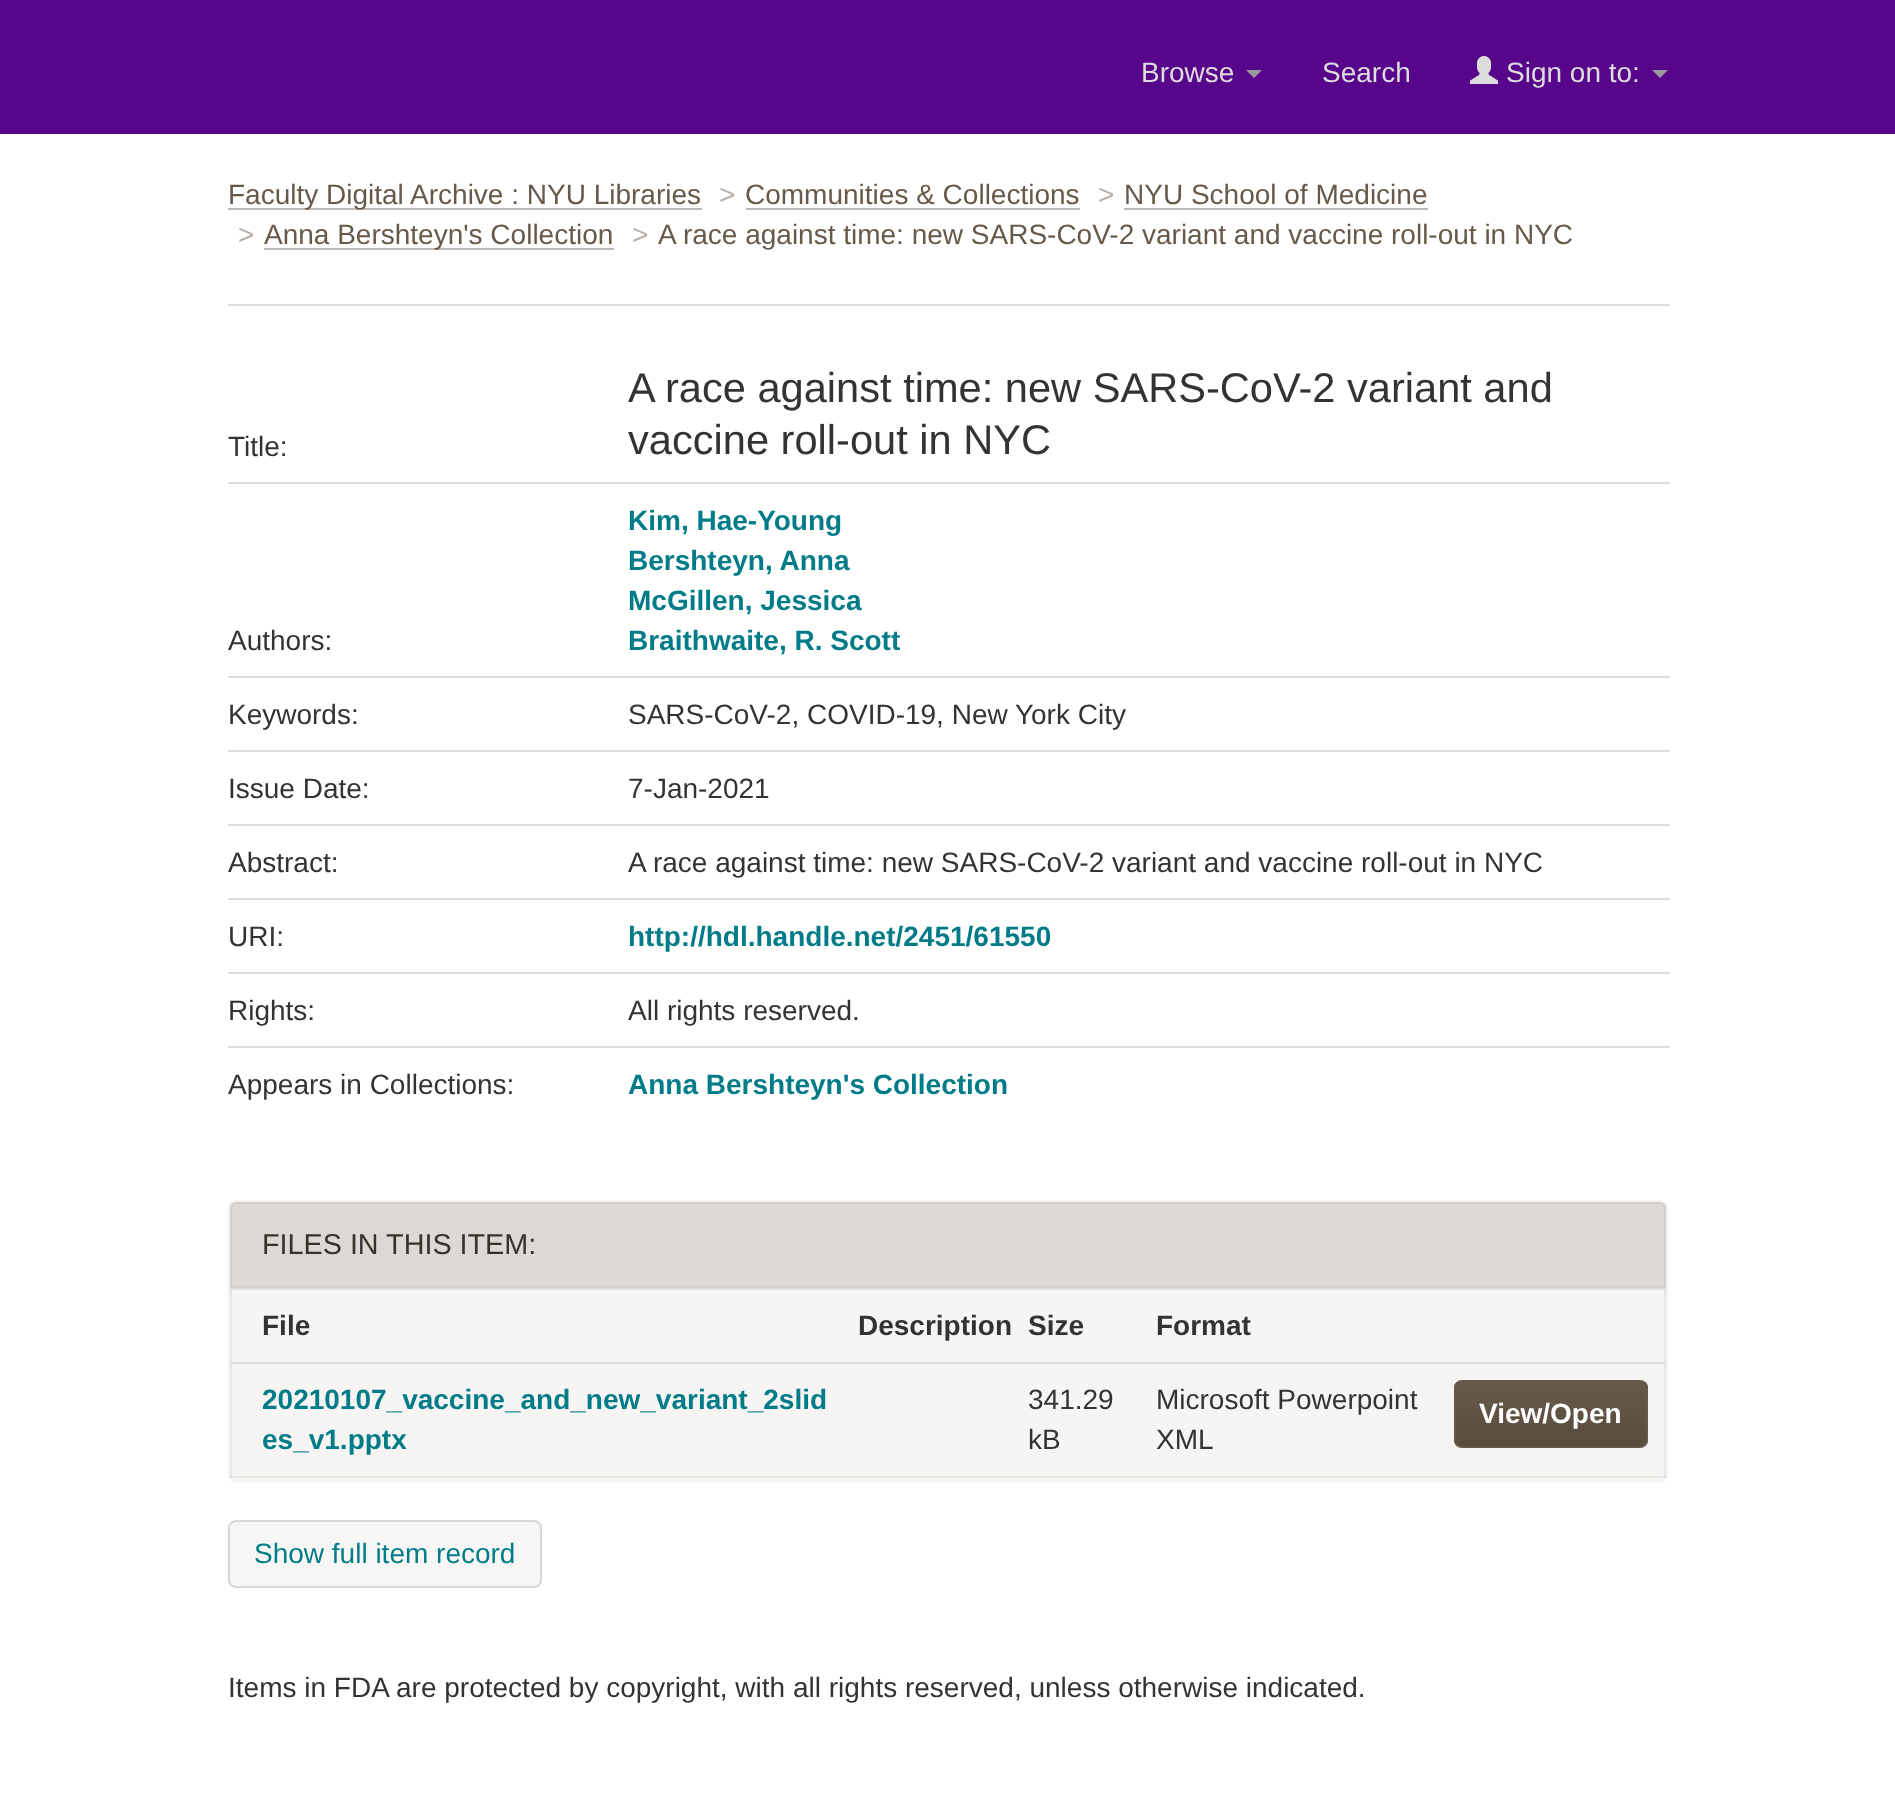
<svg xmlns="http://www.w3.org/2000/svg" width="1895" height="1807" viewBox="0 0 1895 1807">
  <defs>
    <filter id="blur1" x="-50%" y="-200%" width="200%" height="500%"><feGaussianBlur stdDeviation="1"/></filter>
    <clipPath id="clip1"><rect x="1454" y="1380" width="194" height="68" rx="8"/></clipPath>
    <linearGradient id="g1" gradientUnits="userSpaceOnUse" x1="1551" y1="1382" x2="1551" y2="1446"><stop offset="0" stop-color="#675949"/><stop offset="1" stop-color="#584c3e"/></linearGradient>
    <clipPath id="clip2"><rect x="228" y="1520" width="314" height="68" rx="8"/></clipPath>
    <linearGradient id="g2" gradientUnits="userSpaceOnUse" x1="385" y1="1522" x2="385" y2="1586"><stop offset="0" stop-color="#f6f6f5"/><stop offset="1" stop-color="#f8f7f6"/></linearGradient>
  </defs>
  <rect width="100%" height="100%" fill="#ffffff"/>
  <rect x="0" y="0" width="1895" height="134" fill="#57068c"/>
  <text x="1141" y="82" font-family="Liberation Sans" font-size="28" fill="#dddddd">Browse</text>
  <path d="M1246 70H1262L1254 78Z" fill="#999999"/>
  <text x="1322" y="82" font-family="Liberation Sans" font-size="28" fill="#dddddd">Search</text>
  <image x="1470" y="56" width="28" height="28" href="img1.png"/>
  <text x="1506" y="82" font-family="Liberation Sans" font-size="28" fill="#dddddd">Sign on to:</text>
  <path d="M1652 70H1668L1660 78Z" fill="#999999"/>
  <rect x="228" y="208" width="474" height="2" fill="#c1bab4"/>
  <text x="228" y="204" font-family="Liberation Sans" font-size="28" fill="#675949">Faculty Digital Archive : NYU Libraries</text>
  <text x="719" y="204" font-family="Liberation Sans" font-size="28" fill="#b7b0a9">&gt;</text>
  <text x="745" y="204" font-family="Liberation Sans" font-size="28" fill="#675949">Communities &amp; Collections</text>
  <rect x="746" y="208" width="334" height="2" fill="#c1bab4"/>
  <text x="1098" y="204" font-family="Liberation Sans" font-size="28" fill="#b7b0a9">&gt;</text>
  <text x="1124" y="204" font-family="Liberation Sans" font-size="28" fill="#675949">NYU School of Medicine</text>
  <rect x="1124" y="208" width="304" height="2" fill="#c1bab4"/>
  <text x="238" y="244" font-family="Liberation Sans" font-size="28" fill="#b7b0a9">&gt;</text>
  <rect x="264" y="248" width="350" height="2" fill="#c1bab4"/>
  <text x="264" y="244" font-family="Liberation Sans" font-size="28" fill="#675949">Anna Bershteyn's Collection</text>
  <text x="632" y="244" font-family="Liberation Sans" font-size="28" fill="#b7b0a9">&gt;</text>
  <text x="658" y="244" font-family="Liberation Sans" font-size="28" fill="#675949">A race against time: new SARS-CoV-2 variant and vaccine roll-out in NYC</text>
  <text x="228" y="456" font-family="Liberation Sans" font-size="28" fill="#333333">Title:</text>
  <rect x="228" y="304" width="1442" height="2" fill="#dddddd"/>
  <text x="628" y="402" font-family="Liberation Sans" font-size="41.6" fill="#333333">A race against time: new SARS-CoV-2 variant and</text>
  <text x="628" y="454" font-family="Liberation Sans" font-size="41.6" fill="#333333">vaccine roll-out in NYC</text>
  <text x="228" y="650" font-family="Liberation Sans" font-size="28" fill="#333333">Authors:</text>
  <rect x="228" y="482" width="1442" height="2" fill="#dddddd"/>
  <text x="628" y="530" font-family="Liberation Sans" font-size="28" font-weight="bold" fill="#007c88">Kim, Hae-Young</text>
  <text x="628" y="570" font-family="Liberation Sans" font-size="28" font-weight="bold" fill="#007c88">Bershteyn, Anna</text>
  <text x="628" y="610" font-family="Liberation Sans" font-size="28" font-weight="bold" fill="#007c88">McGillen, Jessica</text>
  <text x="628" y="650" font-family="Liberation Sans" font-size="28" font-weight="bold" fill="#007c88">Braithwaite, R. Scott</text>
  <text x="228" y="724" font-family="Liberation Sans" font-size="28" fill="#333333">Keywords:</text>
  <rect x="228" y="676" width="1442" height="2" fill="#dddddd"/>
  <text x="628" y="724" font-family="Liberation Sans" font-size="28" fill="#333333">SARS-CoV-2, COVID-19, New York City</text>
  <text x="228" y="798" font-family="Liberation Sans" font-size="28" fill="#333333">Issue Date:</text>
  <rect x="228" y="750" width="1442" height="2" fill="#dddddd"/>
  <text x="628" y="798" font-family="Liberation Sans" font-size="28" fill="#333333">7-Jan-2021</text>
  <text x="228" y="872" font-family="Liberation Sans" font-size="28" fill="#333333">Abstract:</text>
  <rect x="228" y="824" width="1442" height="2" fill="#dddddd"/>
  <text x="628" y="872" font-family="Liberation Sans" font-size="28" fill="#333333">A race against time: new SARS-CoV-2 variant and vaccine roll-out in NYC</text>
  <text x="228" y="946" font-family="Liberation Sans" font-size="28" fill="#333333">URI:</text>
  <rect x="228" y="898" width="1442" height="2" fill="#dddddd"/>
  <text x="628" y="946" font-family="Liberation Sans" font-size="28" font-weight="bold" fill="#007c88">http://hdl.handle.net/2451/61550</text>
  <text x="228" y="1020" font-family="Liberation Sans" font-size="28" fill="#333333">Rights:</text>
  <rect x="228" y="972" width="1442" height="2" fill="#dddddd"/>
  <text x="628" y="1020" font-family="Liberation Sans" font-size="28" fill="#333333">All rights reserved.</text>
  <text x="228" y="1094" font-family="Liberation Sans" font-size="28" fill="#333333">Appears in Collections:</text>
  <rect x="228" y="1046" width="1442" height="2" fill="#dddddd"/>
  <text x="628" y="1094" font-family="Liberation Sans" font-size="28" font-weight="bold" fill="#007c88">Anna Bershteyn's Collection</text>
  <rect x="228" y="1202" width="1440" height="280" rx="8" fill="#000000" fill-opacity="0.05" filter="url(#blur1)"/>
  <rect x="228" y="1200" width="1440" height="280" rx="8" fill="#f6f5f4"/>
  <path d="M236 1202H1660C1663.5 1202 1666 1204.5 1666 1208V1288H230V1208C230 1204.5 232.5 1202 236 1202Z" fill="#dcd8d5"/>
  <path d="M236 1203H1660C1663 1203 1665 1205 1665 1208V1287H231V1208C231 1205 233 1203 236 1203Z" fill="none" stroke="#b5ada6" stroke-opacity="0.2" stroke-width="2"/>
  <text x="262" y="1254" font-family="Liberation Sans" font-size="28.75" fill="#3a3229">FILES IN THIS ITEM:</text>
  <rect x="1664" y="1288" width="2" height="190" fill="#e9e7e4"/>
  <rect x="230" y="1476" width="1436" height="2" fill="#b5ada6" fill-opacity="0.2"/>
  <rect x="230" y="1288" width="2" height="190" fill="#b5ada6" fill-opacity="0.2"/>
  <rect x="230" y="1288" width="1436" height="2" fill="#dddddd"/>
  <text x="262" y="1335" font-family="Liberation Sans" font-size="28" font-weight="bold" fill="#333333">File</text>
  <text x="858" y="1335" font-family="Liberation Sans" font-size="28" font-weight="bold" fill="#333333">Description</text>
  <text x="1028" y="1335" font-family="Liberation Sans" font-size="28" font-weight="bold" fill="#333333">Size</text>
  <text x="1156" y="1335" font-family="Liberation Sans" font-size="28" font-weight="bold" fill="#333333">Format</text>
  <text x="262" y="1409" font-family="Liberation Sans" font-size="28" font-weight="bold" fill="#007c88">20210107_vaccine_and_new_variant_2slid</text>
  <text x="262" y="1449" font-family="Liberation Sans" font-size="28" font-weight="bold" fill="#007c88">es_v1.pptx</text>
  <text x="1028" y="1409" font-family="Liberation Sans" font-size="28" fill="#333333">341.29</text>
  <text x="1028" y="1449" font-family="Liberation Sans" font-size="28" fill="#333333">kB</text>
  <text x="1156" y="1409" font-family="Liberation Sans" font-size="28" fill="#333333">Microsoft Powerpoint</text>
  <text x="1156" y="1449" font-family="Liberation Sans" font-size="28" fill="#333333">XML</text>
  <rect x="230" y="1362" width="1436" height="2" fill="#dddddd"/>
  <g clip-path="url(#clip1)">
    <rect x="1454" y="1382" width="194" height="64" fill="url(#g1)"/>
  </g>
  <rect x="1455" y="1381" width="192" height="66" rx="7" fill="none" stroke="#675949" stroke-width="2"/>
  <text x="1479" y="1423" font-family="Liberation Sans" font-size="28" font-weight="bold" fill="#ffffff">View/Open</text>
  <g clip-path="url(#clip2)">
    <rect x="228" y="1522" width="314" height="64" fill="url(#g2)"/>
  </g>
  <rect x="229" y="1521" width="312" height="66" rx="7" fill="none" stroke="#dad6d3" stroke-width="2"/>
  <text x="254" y="1563" font-family="Liberation Sans" font-size="28" fill="#007c88">Show full item record</text>
  <text x="228" y="1697" font-family="Liberation Sans" font-size="28" fill="#333333">Items in FDA are protected by copyright, with all rights reserved, unless otherwise indicated.</text>
</svg>
